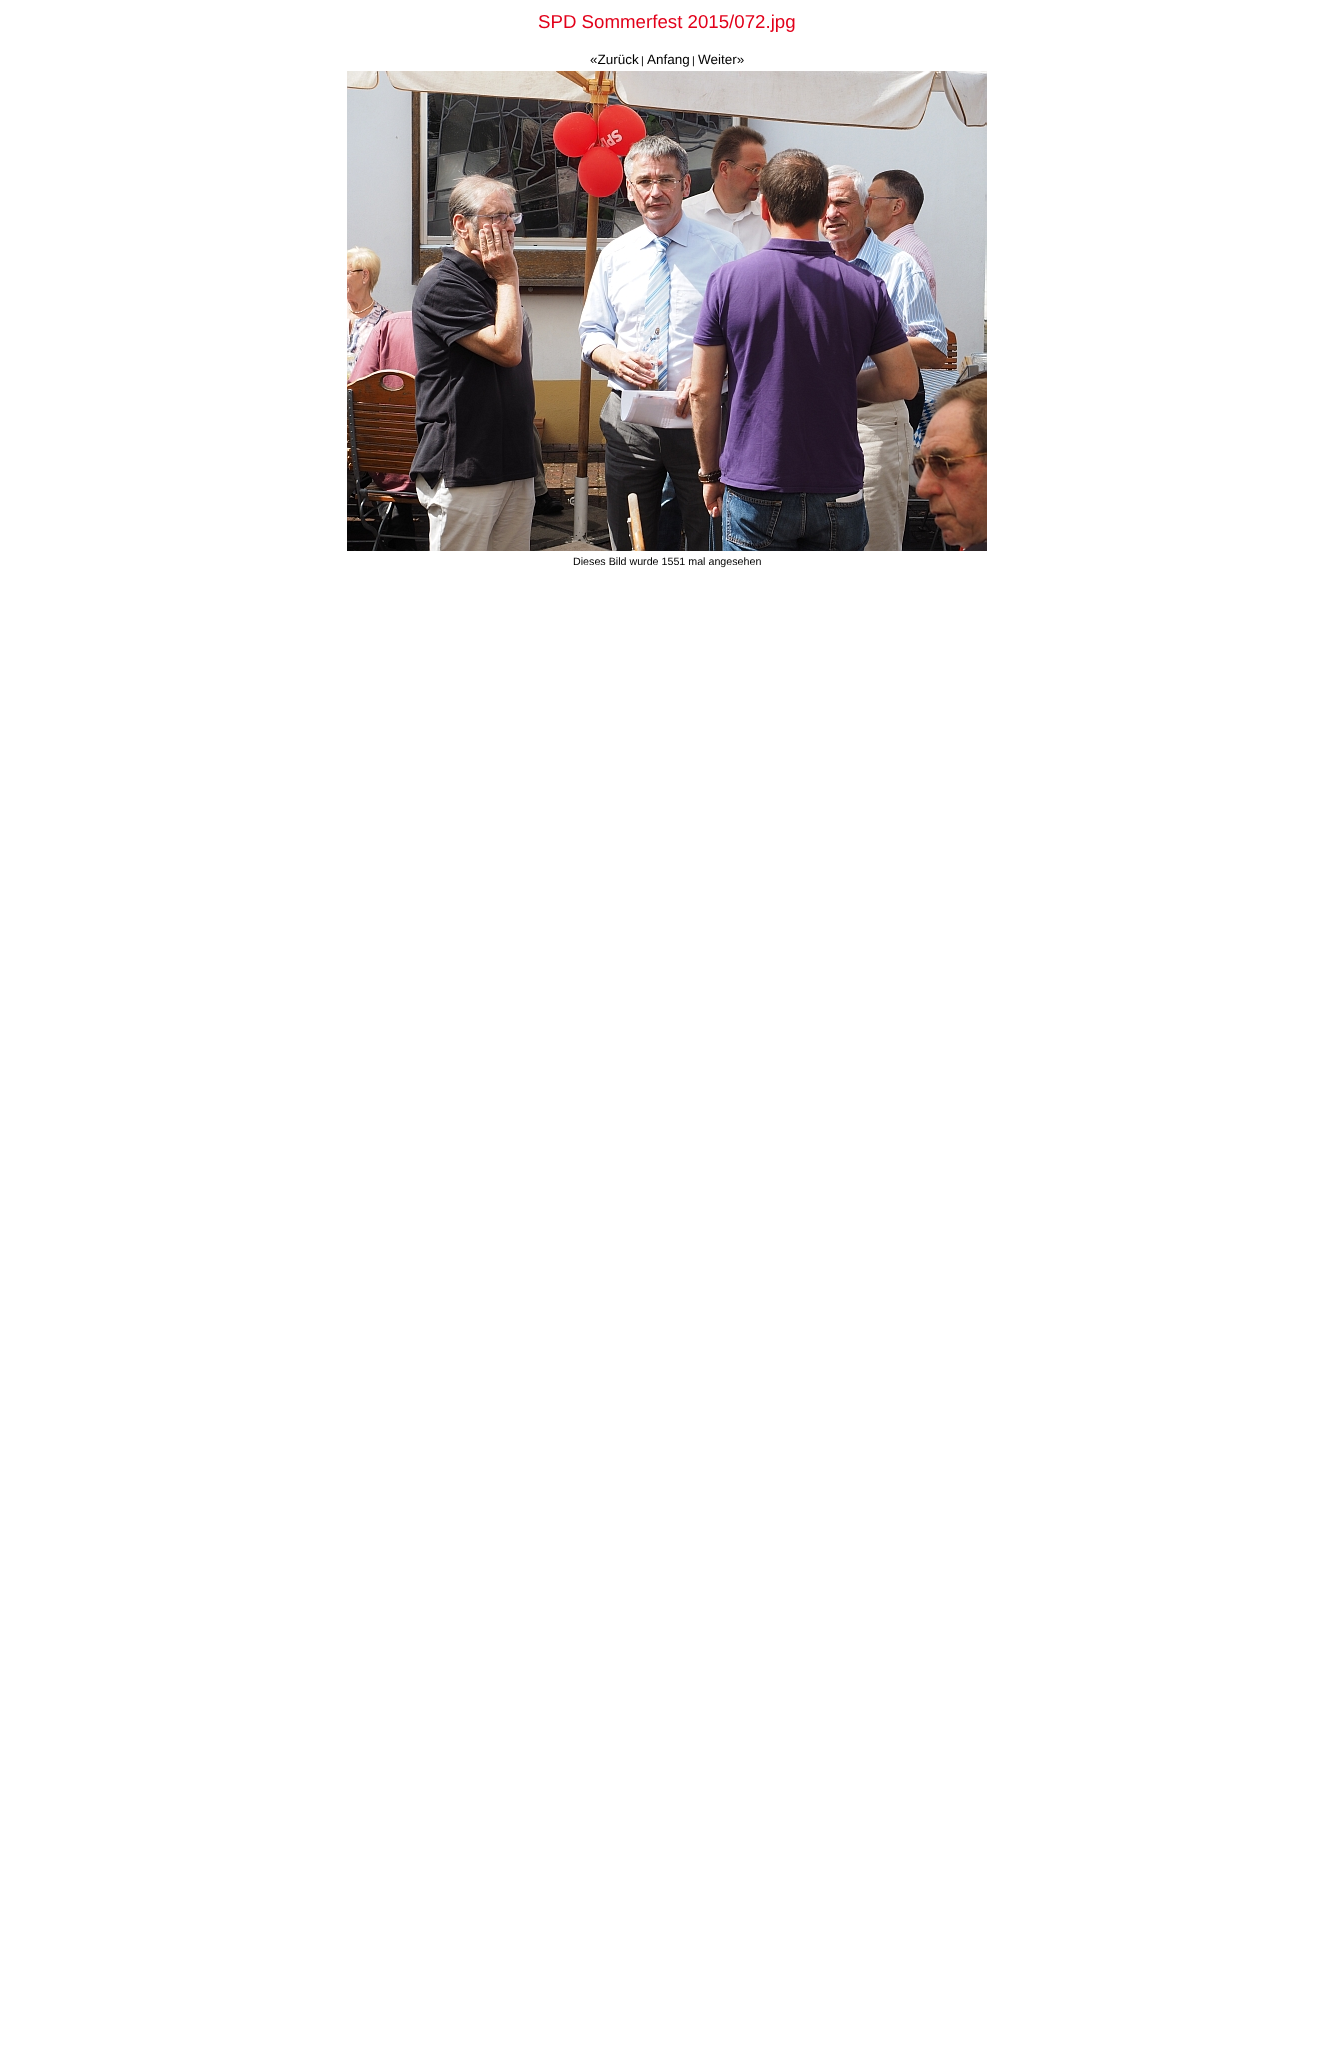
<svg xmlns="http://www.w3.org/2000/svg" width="1333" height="2046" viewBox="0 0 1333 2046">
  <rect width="100%" height="100%" fill="#ffffff"/>
  <text x="538" y="28" font-family="Liberation Sans" font-size="18.7" fill="#e2001a">SPD Sommerfest 2015/072.jpg</text>
  <text x="590" y="64" font-family="Liberation Sans" font-size="13.5" fill="#000000">«Zurück</text>
  <text x="641" y="64" font-family="Liberation Sans" font-size="10.7" fill="#000000">|</text>
  <text x="647" y="64" font-family="Liberation Sans" font-size="13.5" fill="#000000">Anfang</text>
  <text x="692" y="64" font-family="Liberation Sans" font-size="10.7" fill="#000000">|</text>
  <text x="698" y="64" font-family="Liberation Sans" font-size="13.5" fill="#000000">Weiter»</text>
  <image x="347" y="71" width="640" height="480" href="img1.png"/>
  <text x="573" y="565" font-family="Liberation Sans" font-size="10.7" fill="#000000">Dieses Bild wurde 1551 mal angesehen</text>
</svg>
